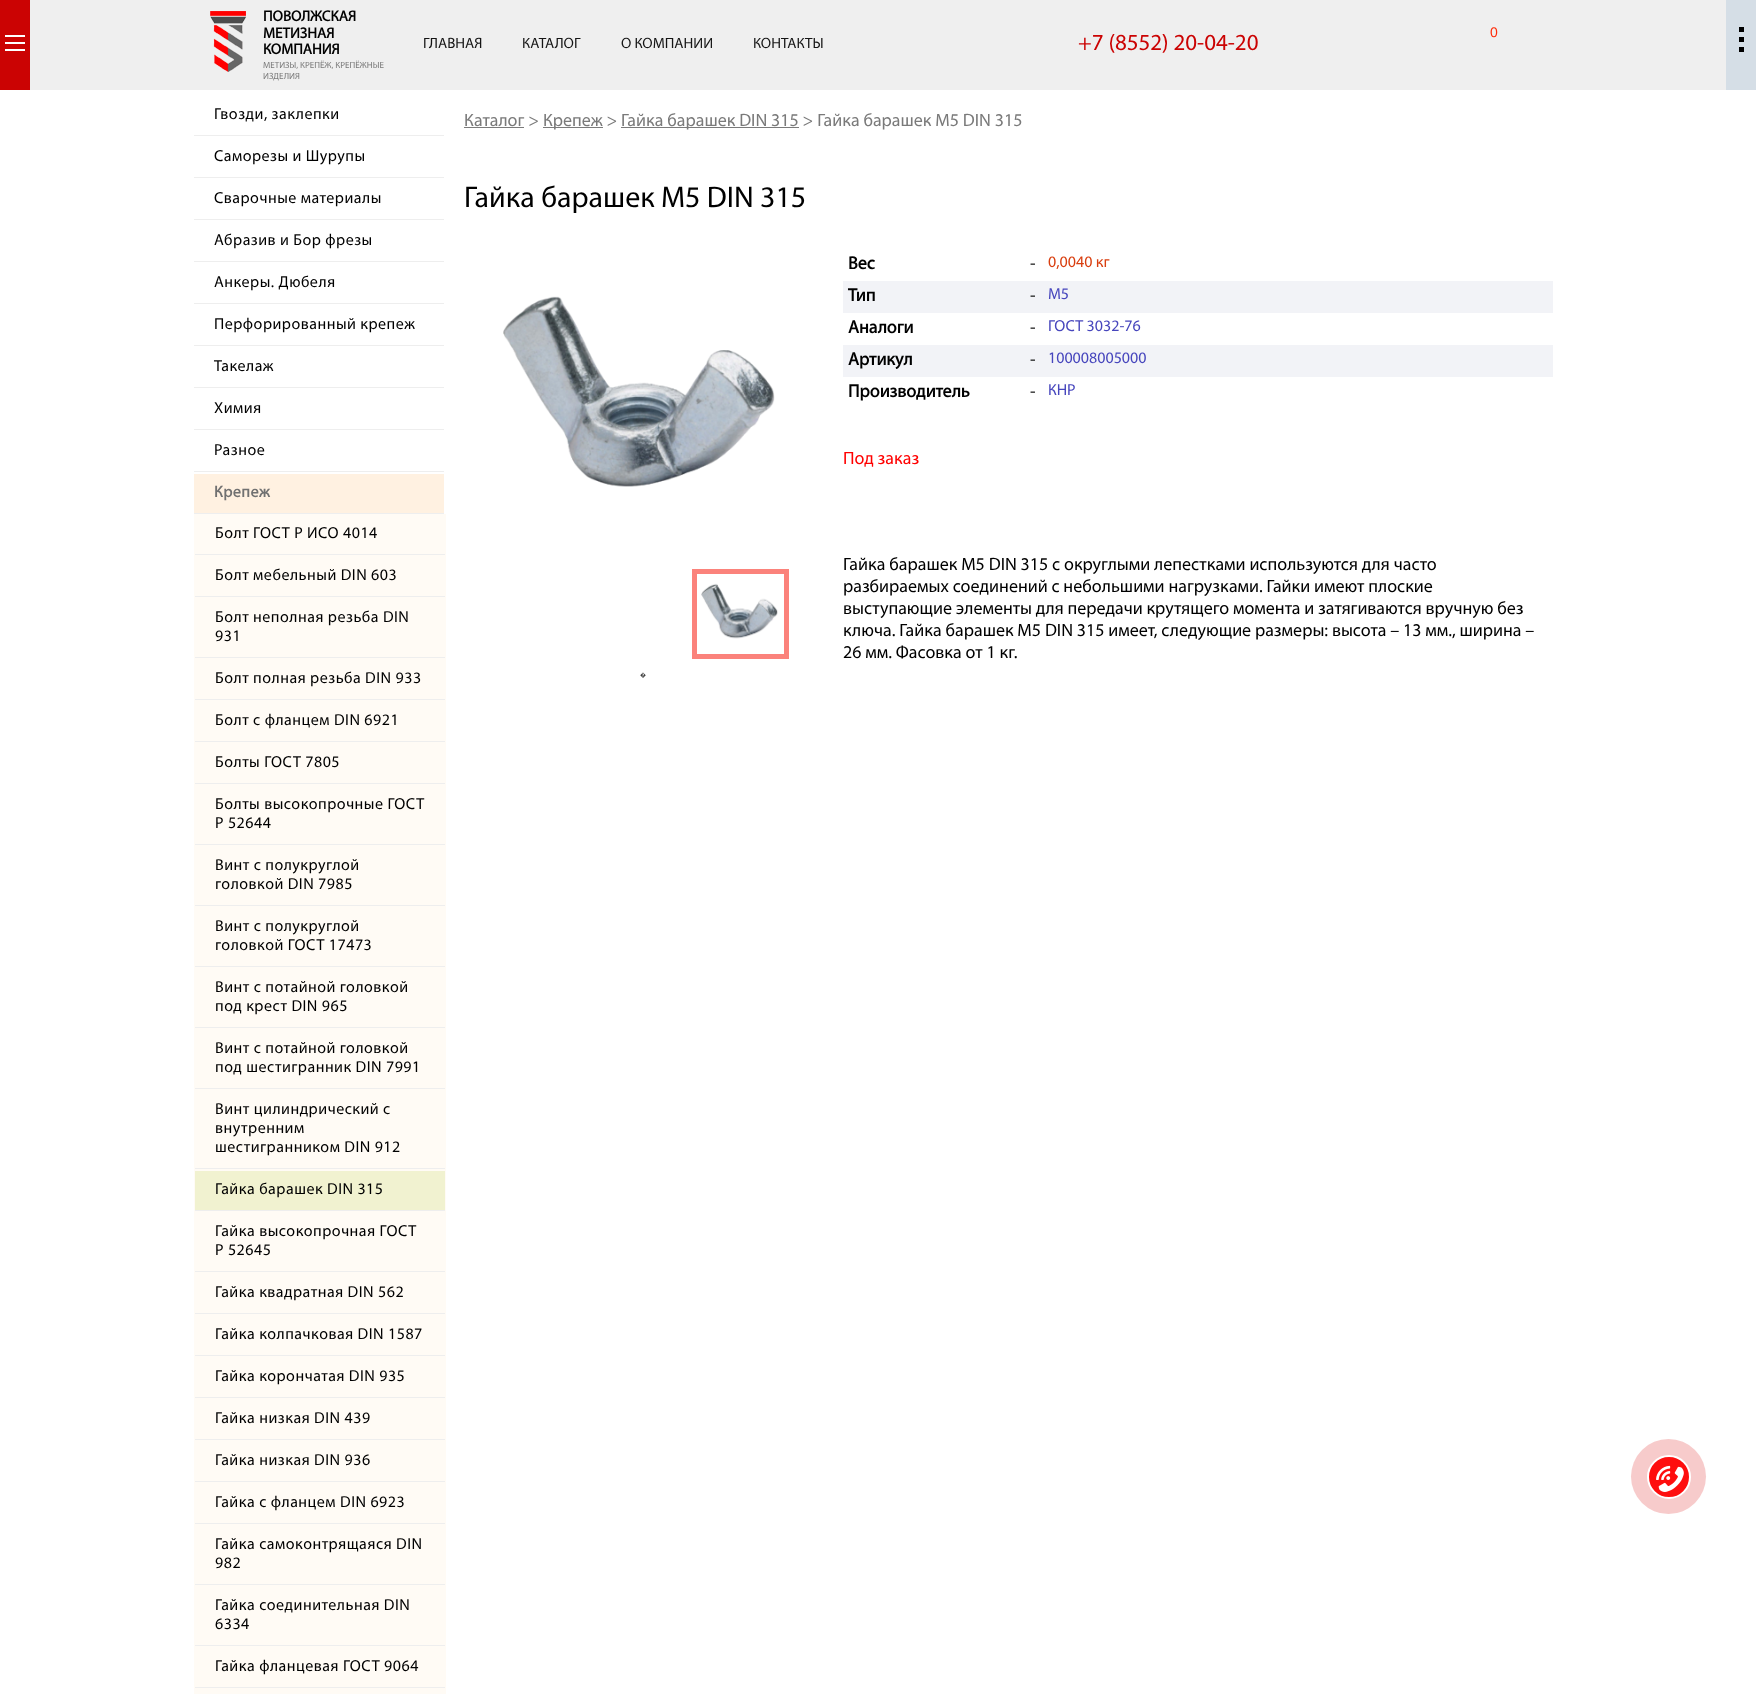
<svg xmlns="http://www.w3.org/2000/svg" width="1756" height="1694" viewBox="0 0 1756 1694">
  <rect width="100%" height="100%" fill="#ffffff"/>
  <rect x="30" y="0" width="1696" height="90" fill="#efefef"/>
  <rect x="0" y="0" width="30" height="90" fill="#cb0303"/>
  <rect x="5" y="35" width="20" height="2" fill="#ffffff"/>
  <rect x="5" y="42" width="20" height="2" fill="#ffffff"/>
  <rect x="5" y="49" width="20" height="2" fill="#ffffff"/>
  <rect x="1726" y="0" width="30" height="90" fill="#d5dee6"/>
  <rect x="1739" y="27" width="5" height="5" fill="#000000"/>
  <rect x="1739" y="37" width="5" height="5" fill="#000000"/>
  <rect x="1739" y="47" width="5" height="5" fill="#000000"/>
  <image x="210" y="11" width="36" height="61" href="img1.png"/>
  <text x="263" y="21" font-family="Myriad" font-size="15" font-weight="bold" fill="#000000">ПОВОЛЖСКАЯ</text>
  <text x="263" y="38" font-family="Myriad" font-size="15" font-weight="bold" fill="#000000">МЕТИЗНАЯ</text>
  <text x="263" y="54" font-family="Myriad" font-size="15" font-weight="bold" fill="#000000">КОМПАНИЯ</text>
  <text x="263" y="68" font-family="Myriad" font-size="9" fill="#7a7a7a">МЕТИЗЫ, КРЕПЁЖ, КРЕПЁЖНЫЕ</text>
  <text x="263" y="79" font-family="Myriad" font-size="9" fill="#7a7a7a">ИЗДЕЛИЯ</text>
  <text x="423" y="48" font-family="Myriad" font-size="15" fill="#151515">ГЛАВНАЯ</text>
  <text x="522" y="48" font-family="Myriad" font-size="15" fill="#151515">КАТАЛОГ</text>
  <text x="621" y="48" font-family="Myriad" font-size="15" fill="#151515">О КОМПАНИИ</text>
  <text x="753" y="48" font-family="Myriad" font-size="15" fill="#151515">КОНТАКТЫ</text>
  <text x="1490" y="37" font-family="Liberation Sans" font-size="14" fill="#ff2a08">0</text>
  <text x="1078" y="50" font-family="Myriad" font-size="23" fill="#cb0303">+7 (8552) 20-04-20</text>
  <rect x="194" y="135" width="250" height="1" fill="#eeeeee"/>
  <text x="214" y="119" font-family="Myriad" font-size="16" letter-spacing="0.5" fill="#000000">Гвозди, заклепки</text>
  <rect x="194" y="177" width="250" height="1" fill="#eeeeee"/>
  <text x="214" y="161" font-family="Myriad" font-size="16" letter-spacing="0.5" fill="#000000">Саморезы и Шурупы</text>
  <rect x="194" y="219" width="250" height="1" fill="#eeeeee"/>
  <text x="214" y="203" font-family="Myriad" font-size="16" letter-spacing="0.5" fill="#000000">Сварочные материалы</text>
  <rect x="194" y="261" width="250" height="1" fill="#eeeeee"/>
  <text x="214" y="245" font-family="Myriad" font-size="16" letter-spacing="0.5" fill="#000000">Абразив и Бор фрезы</text>
  <rect x="194" y="303" width="250" height="1" fill="#eeeeee"/>
  <text x="214" y="287" font-family="Myriad" font-size="16" letter-spacing="0.5" fill="#000000">Анкеры. Дюбеля</text>
  <rect x="194" y="345" width="250" height="1" fill="#eeeeee"/>
  <text x="214" y="329" font-family="Myriad" font-size="16" letter-spacing="0.5" fill="#000000">Перфорированный крепеж</text>
  <rect x="194" y="387" width="250" height="1" fill="#eeeeee"/>
  <text x="214" y="371" font-family="Myriad" font-size="16" letter-spacing="0.5" fill="#000000">Такелаж</text>
  <rect x="194" y="429" width="250" height="1" fill="#eeeeee"/>
  <text x="214" y="413" font-family="Myriad" font-size="16" letter-spacing="0.5" fill="#000000">Химия</text>
  <rect x="194" y="471" width="250" height="1" fill="#eeeeee"/>
  <text x="214" y="455" font-family="Myriad" font-size="16" letter-spacing="0.5" fill="#000000">Разное</text>
  <rect x="194" y="474" width="250" height="39" fill="#fff1e1"/>
  <rect x="194" y="513" width="250" height="1" fill="#eeeeee"/>
  <text x="214" y="497" font-family="Myriad" font-size="16" font-weight="bold" letter-spacing="0.5" fill="#717171">Крепеж</text>
  <rect x="194" y="514" width="252" height="1180" fill="#fffbf5"/>
  <rect x="195" y="554" width="250" height="1" fill="#eeeeee"/>
  <text x="215" y="538" font-family="Myriad" font-size="16" letter-spacing="0.5" fill="#000000">Болт ГОСТ Р ИСО 4014</text>
  <rect x="195" y="596" width="250" height="1" fill="#eeeeee"/>
  <text x="215" y="580" font-family="Myriad" font-size="16" letter-spacing="0.5" fill="#000000">Болт мебельный DIN 603</text>
  <rect x="195" y="657" width="250" height="1" fill="#eeeeee"/>
  <text x="215" y="622" font-family="Myriad" font-size="16" letter-spacing="0.5" fill="#000000">Болт неполная резьба DIN</text>
  <text x="215" y="641" font-family="Myriad" font-size="16" letter-spacing="0.5" fill="#000000">931</text>
  <rect x="195" y="699" width="250" height="1" fill="#eeeeee"/>
  <text x="215" y="683" font-family="Myriad" font-size="16" letter-spacing="0.5" fill="#000000">Болт полная резьба DIN 933</text>
  <rect x="195" y="741" width="250" height="1" fill="#eeeeee"/>
  <text x="215" y="725" font-family="Myriad" font-size="16" letter-spacing="0.5" fill="#000000">Болт с фланцем DIN 6921</text>
  <rect x="195" y="783" width="250" height="1" fill="#eeeeee"/>
  <text x="215" y="767" font-family="Myriad" font-size="16" letter-spacing="0.5" fill="#000000">Болты ГОСТ 7805</text>
  <rect x="195" y="844" width="250" height="1" fill="#eeeeee"/>
  <text x="215" y="809" font-family="Myriad" font-size="16" letter-spacing="0.5" fill="#000000">Болты высокопрочные ГОСТ</text>
  <text x="215" y="828" font-family="Myriad" font-size="16" letter-spacing="0.5" fill="#000000">Р 52644</text>
  <rect x="195" y="905" width="250" height="1" fill="#eeeeee"/>
  <text x="215" y="870" font-family="Myriad" font-size="16" letter-spacing="0.5" fill="#000000">Винт с полукруглой</text>
  <text x="215" y="889" font-family="Myriad" font-size="16" letter-spacing="0.5" fill="#000000">головкой DIN 7985</text>
  <rect x="195" y="966" width="250" height="1" fill="#eeeeee"/>
  <text x="215" y="931" font-family="Myriad" font-size="16" letter-spacing="0.5" fill="#000000">Винт с полукруглой</text>
  <text x="215" y="950" font-family="Myriad" font-size="16" letter-spacing="0.5" fill="#000000">головкой ГОСТ 17473</text>
  <rect x="195" y="1027" width="250" height="1" fill="#eeeeee"/>
  <text x="215" y="992" font-family="Myriad" font-size="16" letter-spacing="0.5" fill="#000000">Винт с потайной головкой</text>
  <text x="215" y="1011" font-family="Myriad" font-size="16" letter-spacing="0.5" fill="#000000">под крест DIN 965</text>
  <rect x="195" y="1088" width="250" height="1" fill="#eeeeee"/>
  <text x="215" y="1053" font-family="Myriad" font-size="16" letter-spacing="0.5" fill="#000000">Винт с потайной головкой</text>
  <text x="215" y="1072" font-family="Myriad" font-size="16" letter-spacing="0.5" fill="#000000">под шестигранник DIN 7991</text>
  <rect x="195" y="1168" width="250" height="1" fill="#eeeeee"/>
  <text x="215" y="1114" font-family="Myriad" font-size="16" letter-spacing="0.5" fill="#000000">Винт цилиндрический с</text>
  <text x="215" y="1133" font-family="Myriad" font-size="16" letter-spacing="0.5" fill="#000000">внутренним</text>
  <text x="215" y="1152" font-family="Myriad" font-size="16" letter-spacing="0.5" fill="#000000">шестигранником DIN 912</text>
  <rect x="195" y="1171" width="250" height="39" fill="#f1f2d0"/>
  <rect x="195" y="1210" width="250" height="1" fill="#eeeeee"/>
  <text x="215" y="1194" font-family="Myriad" font-size="16" letter-spacing="0.5" fill="#000000">Гайка барашек DIN 315</text>
  <rect x="195" y="1271" width="250" height="1" fill="#eeeeee"/>
  <text x="215" y="1236" font-family="Myriad" font-size="16" letter-spacing="0.5" fill="#000000">Гайка высокопрочная ГОСТ</text>
  <text x="215" y="1255" font-family="Myriad" font-size="16" letter-spacing="0.5" fill="#000000">Р 52645</text>
  <rect x="195" y="1313" width="250" height="1" fill="#eeeeee"/>
  <text x="215" y="1297" font-family="Myriad" font-size="16" letter-spacing="0.5" fill="#000000">Гайка квадратная DIN 562</text>
  <rect x="195" y="1355" width="250" height="1" fill="#eeeeee"/>
  <text x="215" y="1339" font-family="Myriad" font-size="16" letter-spacing="0.5" fill="#000000">Гайка колпачковая DIN 1587</text>
  <rect x="195" y="1397" width="250" height="1" fill="#eeeeee"/>
  <text x="215" y="1381" font-family="Myriad" font-size="16" letter-spacing="0.5" fill="#000000">Гайка корончатая DIN 935</text>
  <rect x="195" y="1439" width="250" height="1" fill="#eeeeee"/>
  <text x="215" y="1423" font-family="Myriad" font-size="16" letter-spacing="0.5" fill="#000000">Гайка низкая DIN 439</text>
  <rect x="195" y="1481" width="250" height="1" fill="#eeeeee"/>
  <text x="215" y="1465" font-family="Myriad" font-size="16" letter-spacing="0.5" fill="#000000">Гайка низкая DIN 936</text>
  <rect x="195" y="1523" width="250" height="1" fill="#eeeeee"/>
  <text x="215" y="1507" font-family="Myriad" font-size="16" letter-spacing="0.5" fill="#000000">Гайка с фланцем DIN 6923</text>
  <rect x="195" y="1584" width="250" height="1" fill="#eeeeee"/>
  <text x="215" y="1549" font-family="Myriad" font-size="16" letter-spacing="0.5" fill="#000000">Гайка самоконтрящаяся DIN</text>
  <text x="215" y="1568" font-family="Myriad" font-size="16" letter-spacing="0.5" fill="#000000">982</text>
  <rect x="195" y="1645" width="250" height="1" fill="#eeeeee"/>
  <text x="215" y="1610" font-family="Myriad" font-size="16" letter-spacing="0.5" fill="#000000">Гайка соединительная DIN</text>
  <text x="215" y="1629" font-family="Myriad" font-size="16" letter-spacing="0.5" fill="#000000">6334</text>
  <rect x="195" y="1687" width="250" height="1" fill="#eeeeee"/>
  <text x="215" y="1671" font-family="Myriad" font-size="16" letter-spacing="0.5" fill="#000000">Гайка фланцевая ГОСТ 9064</text>
  <text x="464" y="126" font-family="Myriad" font-size="18" fill="#7a7a7a">Каталог &gt;</text>
  <rect x="464" y="127" width="60" height="1" fill="#7a7a7a"/>
  <rect x="543" y="127" width="60" height="1" fill="#7a7a7a"/>
  <text x="543" y="126" font-family="Myriad" font-size="18" fill="#7a7a7a">Крепеж &gt;</text>
  <rect x="621" y="127" width="178" height="1" fill="#7a7a7a"/>
  <text x="621" y="126" font-family="Myriad" font-size="18" fill="#7a7a7a">Гайка барашек DIN 315 &gt; Гайка барашек М5 DIN 315</text>
  <text x="464" y="207" font-family="Myriad" font-size="30" fill="#000000">Гайка барашек М5 DIN 315</text>
  <text x="848" y="269" font-family="Myriad" font-size="18" font-weight="bold" fill="#000000">Вес</text>
  <text x="1030" y="269" font-family="Myriad" font-size="18" fill="#000000">-</text>
  <text x="1048" y="267" font-family="Myriad" font-size="16" fill="#d93e0f">0,0040 кг</text>
  <rect x="843" y="281" width="710" height="32" fill="#f2f3f7"/>
  <text x="848" y="301" font-family="Myriad" font-size="18" font-weight="bold" fill="#000000">Тип</text>
  <text x="1030" y="301" font-family="Myriad" font-size="18" fill="#000000">-</text>
  <text x="1048" y="299" font-family="Myriad" font-size="16" fill="#4746bd">М5</text>
  <text x="848" y="333" font-family="Myriad" font-size="18" font-weight="bold" fill="#000000">Аналоги</text>
  <text x="1030" y="333" font-family="Myriad" font-size="18" fill="#000000">-</text>
  <text x="1048" y="331" font-family="Myriad" font-size="16" fill="#4746bd">ГОСТ 3032-76</text>
  <rect x="843" y="345" width="710" height="32" fill="#f2f3f7"/>
  <text x="848" y="365" font-family="Myriad" font-size="18" font-weight="bold" fill="#000000">Артикул</text>
  <text x="1030" y="365" font-family="Myriad" font-size="18" fill="#000000">-</text>
  <text x="1048" y="363" font-family="Myriad" font-size="16" fill="#4746bd">100008005000</text>
  <text x="848" y="397" font-family="Myriad" font-size="18" font-weight="bold" fill="#000000">Производитель</text>
  <text x="1030" y="397" font-family="Myriad" font-size="18" fill="#000000">-</text>
  <text x="1048" y="395" font-family="Myriad" font-size="16" fill="#4746bd">КНР</text>
  <text x="843" y="464" font-family="Myriad" font-size="18" fill="#ff0000">Под заказ</text>
  <text x="843" y="570" font-family="Myriad" font-size="18" fill="#000000">Гайка барашек М5 DIN 315 с округлыми лепестками используются для часто</text>
  <text x="843" y="592" font-family="Myriad" font-size="18" fill="#000000">разбираемых соединений с небольшими нагрузками. Гайки имеют плоские</text>
  <text x="843" y="614" font-family="Myriad" font-size="18" fill="#000000">выступающие элементы для передачи крутящего момента и затягиваются вручную без</text>
  <text x="843" y="636" font-family="Myriad" font-size="18" fill="#000000">ключа. Гайка барашек М5 DIN 315 имеет, следующие размеры: высота – 13 мм., ширина –</text>
  <text x="843" y="658" font-family="Myriad" font-size="18" fill="#000000">26 мм. Фасовка от 1 кг.</text>
  <image x="503" y="296" width="272" height="191" href="img2.png"/>
  <rect x="692" y="569" width="97" height="90" fill="#fb827b"/>
  <rect x="697" y="574" width="87" height="80" fill="#ffffff"/>
  <image x="701" y="583" width="77" height="56" href="img3.png"/>
  <text x="640" y="677" font-family="Noto Sans" font-size="6" fill="#404040">�</text>
  <circle cx="1668.5" cy="1476.5" r="37.5" fill="#f7cbcb"/>
  <circle cx="1669" cy="1477" r="21" fill="#fe0e0e" stroke="#ffffff" stroke-width="2"/>
  <image x="1656" y="1465" width="15" height="15" href="img4.png"/>
  <image x="1658" y="1466" width="26" height="26" href="img5.png"/>
</svg>
